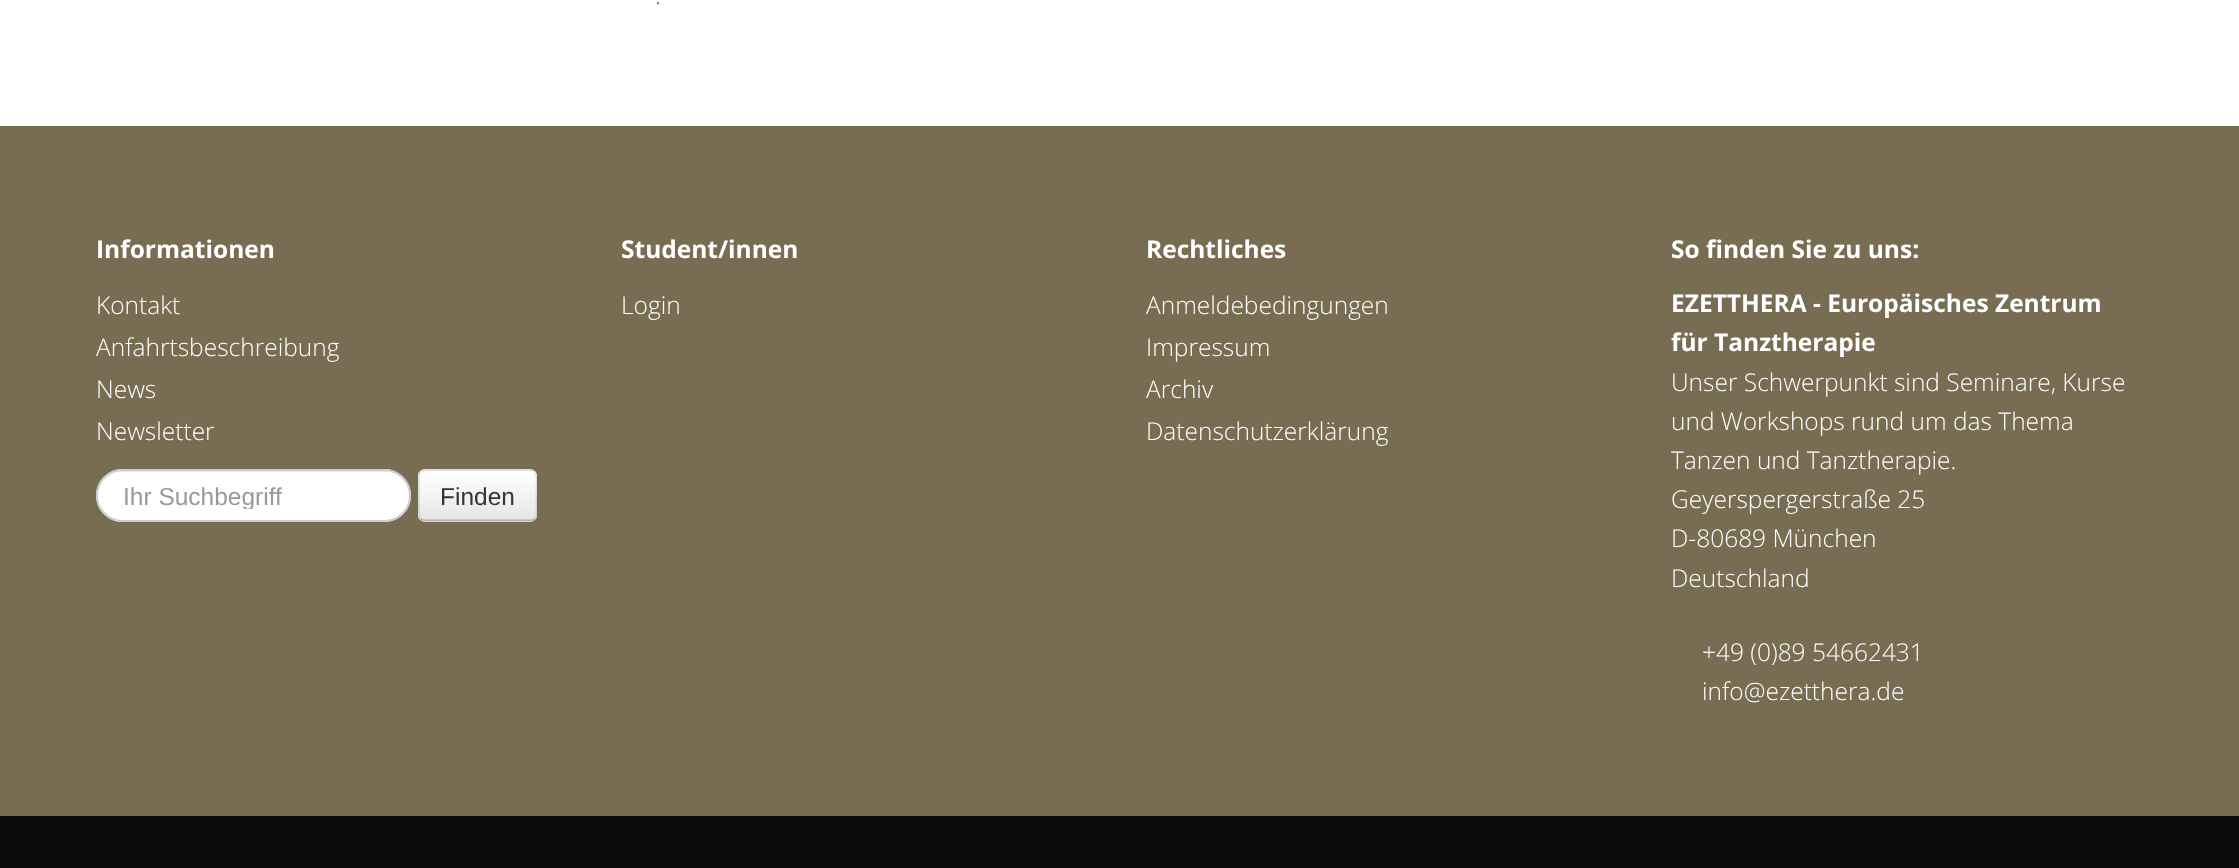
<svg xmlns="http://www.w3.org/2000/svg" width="2239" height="868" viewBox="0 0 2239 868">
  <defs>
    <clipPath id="clip1"><rect x="123" y="481" width="262" height="28"/></clipPath>
    <clipPath id="clip2"><rect x="418" y="469" width="119" height="53" rx="7"/></clipPath>
    <linearGradient id="g1" gradientUnits="userSpaceOnUse" x1="478" y1="471" x2="478" y2="520"><stop offset="0" stop-color="#ffffff"/><stop offset="1" stop-color="#e6e6e6"/></linearGradient>
  </defs>
  <rect width="100%" height="100%" fill="#ffffff"/>
  <text x="655" y="4" font-family="Open Sans" font-size="24.5" font-weight="300" fill="#656565">.</text>
  <rect x="0" y="126" width="2239" height="690" fill="#786c53"/>
  <text x="96" y="258" font-family="Open Sans" font-size="24.5" font-weight="bold" fill="#ffffff">Informationen</text>
  <text x="96" y="314" font-family="Open Sans" font-size="24.5" font-weight="300" fill="#ffffff">Kontakt</text>
  <text x="96" y="356" font-family="Open Sans" font-size="24.5" font-weight="300" fill="#ffffff">Anfahrtsbeschreibung</text>
  <text x="96" y="398" font-family="Open Sans" font-size="24.5" font-weight="300" fill="#ffffff">News</text>
  <text x="96" y="440" font-family="Open Sans" font-size="24.5" font-weight="300" fill="#ffffff">Newsletter</text>
  <rect x="96" y="469" width="315" height="53" rx="26.5" fill="#ffffff"/>
  <path d="M122 472H385C399 472 410 483 410 496C410 482 399 471 386 471H122C109 471 98 482 98 496C98 483 109 472 122 472Z" fill="#ececec"/>
  <rect x="97" y="470" width="313" height="51" rx="25.5" fill="none" stroke="#cccccc" stroke-width="2"/>
  <g clip-path="url(#clip1)">
    <text x="123" y="505" font-family="Liberation Sans" font-size="24.5" fill="#999999">Ihr Suchbegriff</text>
  </g>
  <rect x="418" y="469" width="119" height="53" rx="7" fill="#f5f5f5"/>
  <g clip-path="url(#clip2)">
    <rect x="418" y="471" width="119" height="49" fill="url(#g1)"/>
  </g>
  <path d="M534.5 519C533.5 520 532 520.5 530 520.5H425C423.5 520.5 422 520 421 519" fill="none" stroke="#b3b3b3" stroke-width="1.8"/>
  <path d="M421 519C418 516 419 511.5 419 508V495C419 467.5 414.5 470 443 470H513C541 470 536.5 467.5 536.5 495V508C536.5 511.5 537.5 516 534.5 519" fill="none" stroke="#000000" stroke-opacity="0.1" stroke-width="1.8"/>
  <text x="440" y="505" font-family="Liberation Sans" font-size="24.5" fill="#333333">Finden</text>
  <text x="621" y="258" font-family="Open Sans" font-size="24.5" font-weight="bold" fill="#ffffff">Student/innen</text>
  <text x="621" y="314" font-family="Open Sans" font-size="24.5" font-weight="300" fill="#ffffff">Login</text>
  <text x="1146" y="258" font-family="Open Sans" font-size="24.5" font-weight="bold" fill="#ffffff">Rechtliches</text>
  <text x="1146" y="314" font-family="Open Sans" font-size="24.5" font-weight="300" fill="#ffffff">Anmeldebedingungen</text>
  <text x="1146" y="356" font-family="Open Sans" font-size="24.5" font-weight="300" fill="#ffffff">Impressum</text>
  <text x="1146" y="398" font-family="Open Sans" font-size="24.5" font-weight="300" fill="#ffffff">Archiv</text>
  <text x="1146" y="440" font-family="Open Sans" font-size="24.5" font-weight="300" fill="#ffffff">Datenschutzerklärung</text>
  <text x="1671" y="258" font-family="Open Sans" font-size="24.5" font-weight="bold" fill="#ffffff">So finden Sie zu uns:</text>
  <text x="1671" y="312" font-family="Open Sans" font-size="24.5" font-weight="bold" fill="#ffffff">EZETTHERA - Europäisches Zentrum</text>
  <text x="1671" y="351" font-family="Open Sans" font-size="24.5" font-weight="bold" fill="#ffffff">für Tanztherapie</text>
  <text x="1671" y="391" font-family="Open Sans" font-size="24.5" font-weight="300" fill="#ffffff">Unser Schwerpunkt sind Seminare, Kurse</text>
  <text x="1671" y="430" font-family="Open Sans" font-size="24.5" font-weight="300" fill="#ffffff">und Workshops rund um das Thema</text>
  <text x="1671" y="469" font-family="Open Sans" font-size="24.5" font-weight="300" fill="#ffffff">Tanzen und Tanztherapie.</text>
  <text x="1671" y="508" font-family="Open Sans" font-size="24.5" font-weight="300" fill="#ffffff">Geyerspergerstraße 25</text>
  <text x="1671" y="547" font-family="Open Sans" font-size="24.5" font-weight="300" fill="#ffffff">D-80689 München</text>
  <text x="1671" y="587" font-family="Open Sans" font-size="24.5" font-weight="300" fill="#ffffff">Deutschland</text>
  <text x="1702" y="661" font-family="Open Sans" font-size="24.5" font-weight="300" fill="#ffffff">+49 (0)89 54662431</text>
  <text x="1702" y="700" font-family="Open Sans" font-size="24.5" font-weight="300" fill="#ffffff">info@ezetthera.de</text>
  <rect x="0" y="816" width="2239" height="52" fill="#0a0a0a"/>
</svg>
